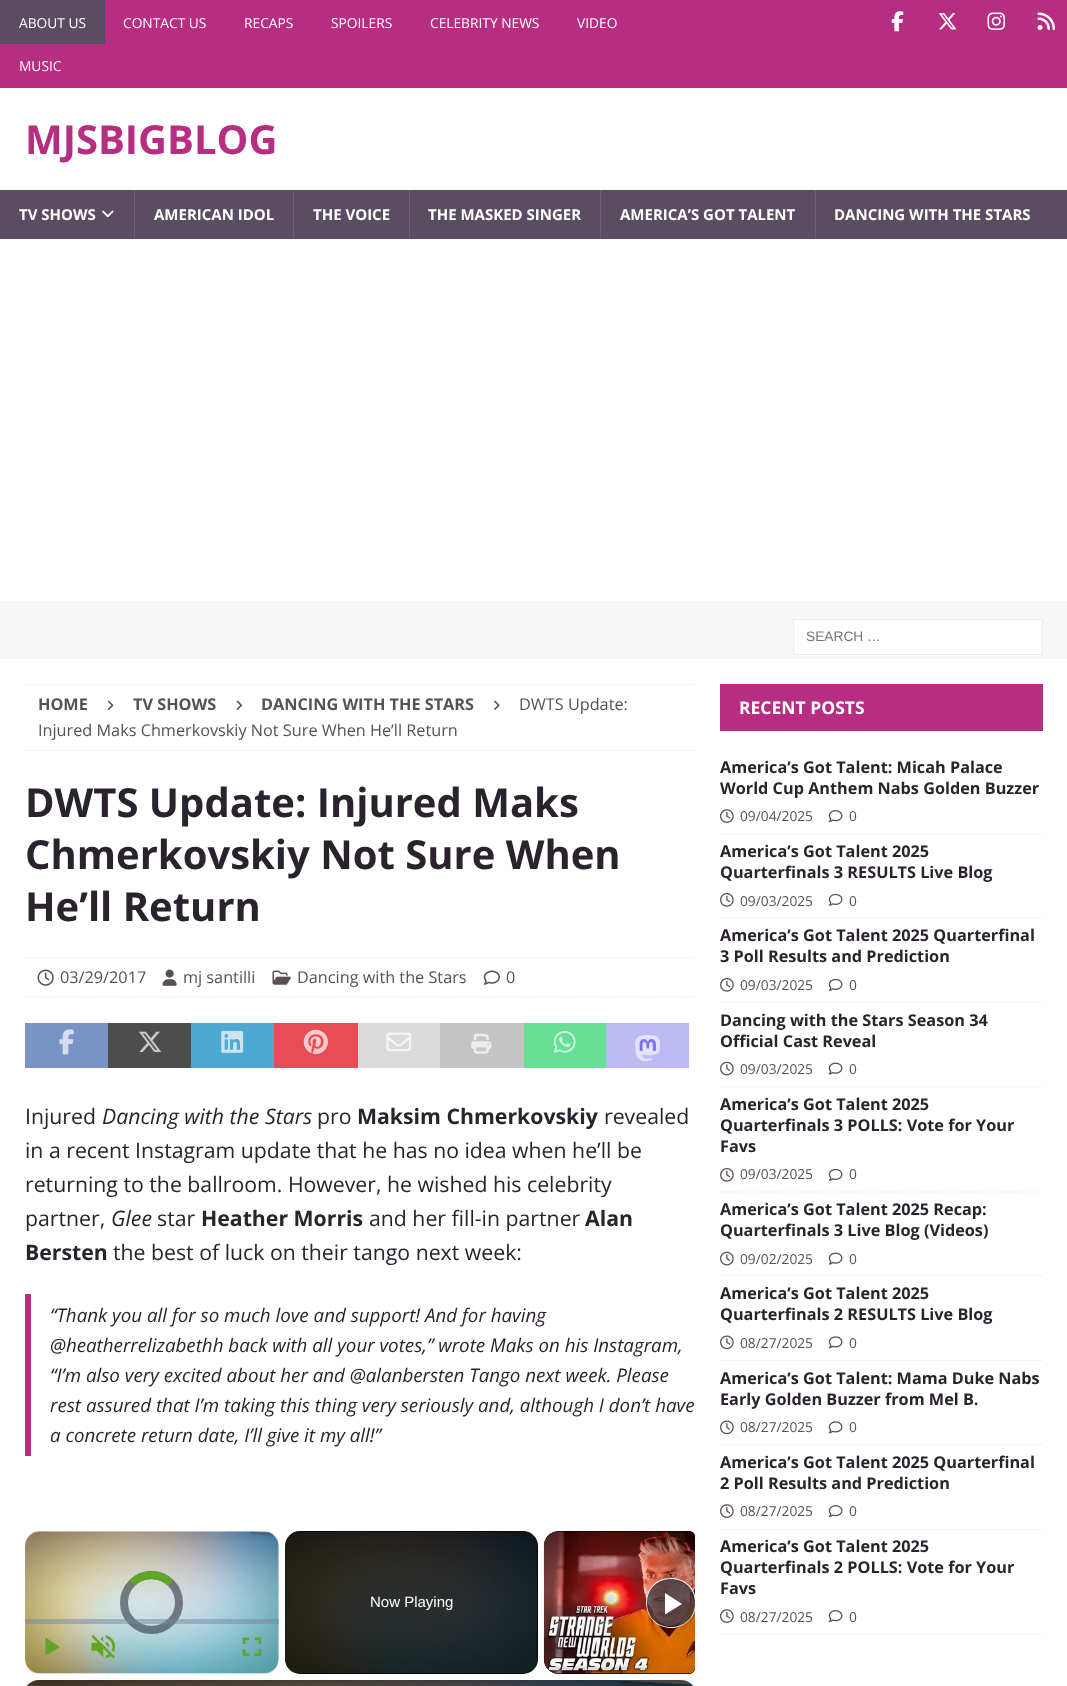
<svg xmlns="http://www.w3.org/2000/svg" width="1067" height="1686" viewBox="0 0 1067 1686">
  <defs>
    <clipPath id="clip1"><rect x="25" y="684" width="670" height="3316"/></clipPath>
    <clipPath id="clip2"><rect x="25" y="1531" width="670" height="143" rx="6"/></clipPath>
    <linearGradient id="g1" gradientUnits="userSpaceOnUse" x1="360" y1="1680" x2="360" y2="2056"><stop offset="0" stop-color="#000000" stop-opacity="0.6"/><stop offset="0.16" stop-color="#000000" stop-opacity="0"/><stop offset="0.84" stop-color="#000000" stop-opacity="0"/><stop offset="1" stop-color="#000000" stop-opacity="0.8"/></linearGradient>
    <clipPath id="clip3"><rect x="720" y="684" width="323" height="951"/></clipPath>
  </defs>
  <rect width="100%" height="100%" fill="#f7f7f7"/>
  <rect x="0" y="0" width="1067" height="88" fill="#b62d81"/>
  <rect x="0" y="0" width="105" height="44" fill="#5b4d61"/>
  <text x="19" y="28" font-family="Open Sans" font-size="13.75" fill="#ffffff">ABOUT US</text>
  <text x="123" y="28" font-family="Open Sans" font-size="13.75" fill="#ffffff">CONTACT US</text>
  <text x="244" y="28" font-family="Open Sans" font-size="13.75" fill="#ffffff">RECAPS</text>
  <text x="331" y="28" font-family="Open Sans" font-size="13.75" fill="#ffffff">SPOILERS</text>
  <text x="430" y="28" font-family="Open Sans" font-size="13.75" fill="#ffffff">CELEBRITY NEWS</text>
  <text x="577" y="28" font-family="Open Sans" font-size="13.75" fill="#ffffff">VIDEO</text>
  <text x="19" y="71" font-family="Open Sans" font-size="13.75" fill="#ffffff">MUSIC</text>
  <image x="891" y="11" width="13" height="21" href="img1.png"/>
  <image x="938" y="13" width="19" height="17" href="img2.png"/>
  <image x="987" y="12" width="18" height="18" href="img3.png"/>
  <image x="1037" y="12" width="18" height="18" href="img4.png"/>
  <rect x="0" y="88" width="1067" height="513" fill="#ffffff"/>
  <text x="25" y="154" font-family="Open Sans" font-size="40" font-weight="bold" fill="#b62d81">MJSBIGBLOG</text>
  <rect x="0" y="190" width="1067" height="49" fill="#5b4d61"/>
  <text x="19" y="220" font-family="Open Sans" font-size="15" font-weight="bold" fill="#ffffff">TV SHOWS</text>
  <image x="102" y="210" width="12" height="8" href="img5.png"/>
  <rect x="134" y="190" width="1" height="49" fill="#6b5f71"/>
  <text x="154" y="220" font-family="Open Sans" font-size="15" font-weight="bold" fill="#ffffff">AMERICAN IDOL</text>
  <rect x="293" y="190" width="1" height="49" fill="#6b5f71"/>
  <text x="313" y="220" font-family="Open Sans" font-size="15" font-weight="bold" fill="#ffffff">THE VOICE</text>
  <rect x="409" y="190" width="1" height="49" fill="#6b5f71"/>
  <text x="428" y="220" font-family="Open Sans" font-size="15" font-weight="bold" fill="#ffffff">THE MASKED SINGER</text>
  <rect x="600" y="190" width="1" height="49" fill="#6b5f71"/>
  <text x="620" y="220" font-family="Open Sans" font-size="15" font-weight="bold" fill="#ffffff">AMERICA’S GOT TALENT</text>
  <rect x="815" y="190" width="1" height="49" fill="#6b5f71"/>
  <text x="834" y="220" font-family="Open Sans" font-size="15" font-weight="bold" fill="#ffffff">DANCING WITH THE STARS</text>
  <rect x="793.5" y="619.5" width="249" height="35" fill="#ffffff" stroke="#ebebeb"/>
  <text x="806" y="641" font-family="Liberation Sans" font-size="13.75" fill="#757575">SEARCH …</text>
  <rect x="0" y="659" width="1067" height="1027" fill="#ffffff"/>
  <g clip-path="url(#clip1)">
    <path d="M25 684.5H695" fill="none" stroke="#ebebeb" stroke-width="1.2" stroke-dasharray="1.25 1.25"/>
  </g>
  <path d="M25 750.5H695" fill="none" stroke="#ebebeb" stroke-width="1.2" stroke-dasharray="1.25 1.25"/>
  <text x="38" y="710" font-family="Open Sans" font-size="16.25" font-weight="bold" fill="#5a504f">HOME</text>
  <image x="107" y="700" width="7" height="10" href="img6.png"/>
  <text x="133" y="710" font-family="Open Sans" font-size="16.25" font-weight="bold" fill="#5a504f">TV SHOWS</text>
  <image x="236" y="700" width="6" height="10" href="img7.png"/>
  <text x="261" y="710" font-family="Open Sans" font-size="16.25" font-weight="bold" fill="#5a504f">DANCING WITH THE STARS</text>
  <image x="494" y="700" width="6" height="10" href="img8.png"/>
  <text x="519" y="710" font-family="Open Sans" font-size="16.25" fill="#5a504f">DWTS Update:</text>
  <text x="38" y="736" font-family="Open Sans" font-size="16.25" fill="#5a504f">Injured Maks Chmerkovskiy Not Sure When He’ll Return</text>
  <text x="25" y="817" font-family="Open Sans" font-size="40" font-weight="bold" fill="#2a232d">DWTS Update: Injured Maks</text>
  <text x="25" y="869" font-family="Open Sans" font-size="40" font-weight="bold" fill="#2a232d">Chmerkovskiy Not Sure When</text>
  <text x="25" y="921" font-family="Open Sans" font-size="40" font-weight="bold" fill="#2a232d">He’ll Return</text>
  <path d="M25 958H695" fill="none" stroke="#ebebeb" stroke-width="1.2" stroke-dasharray="1.25 1.25"/>
  <path d="M25 997H695" fill="none" stroke="#ebebeb" stroke-width="1.2" stroke-dasharray="1.25 1.25"/>
  <image x="37" y="969" width="17" height="17" href="img9.png"/>
  <text x="60" y="983" font-family="Open Sans" font-size="16.25" fill="#5a504f">03/29/2017</text>
  <image x="162" y="969" width="15" height="17" href="img10.png"/>
  <text x="183" y="983" font-family="Open Sans" font-size="16.25" fill="#5a504f">mj santilli</text>
  <image x="272" y="970" width="19" height="15" href="img11.png"/>
  <text x="297" y="983" font-family="Open Sans" font-size="16.25" fill="#5a504f">Dancing with the Stars</text>
  <image x="483" y="970" width="17" height="15" href="img12.png"/>
  <text x="506" y="983" font-family="Open Sans" font-size="16.25" fill="#5a504f">0</text>
  <rect x="25" y="1023" width="83" height="45" fill="#7893c6"/>
  <image x="59" y="1029" width="15" height="26" href="img13.png"/>
  <rect x="108" y="1023" width="83" height="45" fill="#4d4d4d"/>
  <image x="139" y="1031" width="23" height="21" href="img14.png"/>
  <rect x="191" y="1023" width="83" height="45" fill="#4da9d2"/>
  <image x="221" y="1030" width="23" height="23" href="img15.png"/>
  <rect x="274" y="1023" width="84" height="45" fill="#e84d56"/>
  <image x="303" y="1029" width="25" height="25" href="img16.png"/>
  <rect x="358" y="1023" width="82" height="45" fill="#dbdbdb"/>
  <image x="386" y="1032" width="26" height="20" href="img17.png"/>
  <rect x="440" y="1023" width="84" height="45" fill="#c4c4c4"/>
  <image x="471" y="1033" width="21" height="21" href="img18.png"/>
  <rect x="524" y="1023" width="82" height="45" fill="#66e094"/>
  <image x="553" y="1030" width="23" height="23" href="img19.png"/>
  <rect x="606" y="1023" width="83" height="45" fill="#bdb9f5"/>
  <image x="635" y="1035" width="25" height="27" href="img20.png"/>
  <text x="25" y="1124" font-family="Open Sans" font-size="21.25" fill="#2a232d">Injured</text>
  <text x="102" y="1124" font-family="Open Sans" font-size="21.25" font-style="italic" fill="#2a232d">Dancing with the Stars</text>
  <text x="317" y="1124" font-family="Open Sans" font-size="21.25" fill="#2a232d">pro</text>
  <text x="357" y="1124" font-family="Open Sans" font-size="21.25" font-weight="bold" fill="#2a232d">Maksim Chmerkovskiy</text>
  <text x="604" y="1124" font-family="Open Sans" font-size="21.25" fill="#2a232d">revealed</text>
  <text x="25" y="1158" font-family="Open Sans" font-size="21.25" fill="#2a232d">in a recent Instagram update that he has no idea when he’ll be</text>
  <text x="25" y="1192" font-family="Open Sans" font-size="21.25" fill="#2a232d">returning to the ballroom. However, he wished his celebrity</text>
  <text x="25" y="1226" font-family="Open Sans" font-size="21.25" fill="#2a232d">partner,</text>
  <text x="111" y="1226" font-family="Open Sans" font-size="21.25" font-style="italic" fill="#2a232d">Glee</text>
  <text x="157" y="1226" font-family="Open Sans" font-size="21.25" fill="#2a232d">star</text>
  <text x="201" y="1226" font-family="Open Sans" font-size="21.25" font-weight="bold" fill="#2a232d">Heather Morris</text>
  <text x="369" y="1226" font-family="Open Sans" font-size="21.25" fill="#2a232d">and her fill-in partner</text>
  <text x="585" y="1226" font-family="Open Sans" font-size="21.25" font-weight="bold" fill="#2a232d">Alan</text>
  <text x="25" y="1260" font-family="Open Sans" font-size="21.25" font-weight="bold" fill="#2a232d">Bersten</text>
  <text x="113" y="1260" font-family="Open Sans" font-size="21.25" fill="#2a232d">the best of luck on their tango next week:</text>
  <rect x="25" y="1294" width="6" height="162" fill="#b62d81"/>
  <text x="50" y="1322" font-family="Open Sans" font-size="18.75" font-style="italic" fill="#2a232d">“Thank you all for so much love and support! And for having</text>
  <text x="50" y="1352" font-family="Open Sans" font-size="18.75" font-style="italic" fill="#2a232d">@heatherrelizabethh back with all your votes,” wrote Maks on his Instagram,</text>
  <text x="50" y="1382" font-family="Open Sans" font-size="18.75" font-style="italic" fill="#2a232d">“I’m also very excited about her and @alanbersten Tango next week. Please</text>
  <text x="50" y="1412" font-family="Open Sans" font-size="18.75" font-style="italic" fill="#2a232d">rest assured that I’m taking this thing very seriously and, although I don’t have</text>
  <text x="50" y="1442" font-family="Open Sans" font-size="18.75" font-style="italic" fill="#2a232d">a concrete return date, I’ll give it my all!”</text>
  <image x="25" y="1531" width="254" height="143" href="img21.png"/>
  <circle cx="151.5" cy="1602.5" r="27.5" fill="none" stroke="#2b333f" stroke-opacity="0.59" stroke-width="8"/>
  <path d="M132 1583C142.5 1572.5 160 1572.5 170.5 1583" fill="none" stroke="#5fa624" stroke-opacity="0.85" stroke-width="7.5"/>
  <path d="M132 1583C142.5 1572.5 160 1572.5 170.5 1583" fill="none" stroke="#5fa624" stroke-opacity="0.85" stroke-width="7.5"/>
  <rect x="25" y="1619" width="254" height="5" fill="#73859f" fill-opacity="0.5"/>
  <path d="M45.5 1637.5V1656L60 1647Z" fill="#5fa624"/>
  <image x="91" y="1635" width="25" height="24" href="img22.png"/>
  <image x="242" y="1637" width="20" height="19" href="img23.png"/>
  <rect x="285" y="1531" width="253" height="143" rx="15" fill="#000000"/>
  <image x="285" y="1531" width="253" height="143" href="img24.png"/>
  <text x="370" y="1607" font-family="Liberation Sans" font-size="15" fill="#ffffff">Now Playing</text>
  <path d="M559 1531H689C692.5 1531 695 1533.5 695 1537V1668C695 1671.5 692.5 1674 689 1674H559C550.5 1674 544 1667.5 544 1659V1546C544 1537.5 550.5 1531 559 1531Z" fill="#000000"/>
  <image x="543" y="1531" width="152" height="143" href="img25.png"/>
  <g clip-path="url(#clip2)">
    <circle cx="671" cy="1603" r="25" fill="#2b333f" fill-opacity="0.7"/>
  </g>
  <path d="M671 1578C638 1578 638 1627 671 1628C682 1628 693 1620 695 1610V1596C693 1585 682 1578 671 1578ZM695 1603C695 1635 647 1635 647 1603C647 1571 695 1571 695 1603Z" fill="#ffffff" fill-rule="evenodd"/>
  <path d="M665 1593V1614.5L682 1604Z" fill="#ffffff"/>
  <image x="28" y="1680" width="664" height="6" href="img26.png"/>
  <image x="28" y="1680" width="664" height="6" href="img27.png"/>
  <rect x="25" y="1680" width="670" height="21" rx="15" fill="url(#g1)"/>
  <rect x="720" y="684" width="323" height="47" fill="#b62d81"/>
  <text x="739" y="714" font-family="Open Sans" font-size="17.5" font-weight="bold" fill="#ffffff">RECENT POSTS</text>
  <path d="M720 834.5H1042.5" fill="none" stroke="#ebebeb" stroke-width="1.2" stroke-dasharray="1.25 1.25"/>
  <text x="720" y="773" font-family="Open Sans" font-size="16.25" font-weight="bold" fill="#2a232d">America’s Got Talent: Micah Palace</text>
  <text x="720" y="794" font-family="Open Sans" font-size="16.25" font-weight="bold" fill="#2a232d">World Cup Anthem Nabs Golden Buzzer</text>
  <image x="720" y="809" width="14" height="14" href="img28.png"/>
  <text x="740" y="821" font-family="Open Sans" font-size="13.75" fill="#5a504f">09/04/2025</text>
  <image x="828" y="810" width="15" height="13" href="img29.png"/>
  <text x="849" y="821" font-family="Open Sans" font-size="13.75" fill="#5a504f">0</text>
  <path d="M720 918H1042.5" fill="none" stroke="#ebebeb" stroke-width="1.2" stroke-dasharray="1.25 1.25"/>
  <text x="720" y="857" font-family="Open Sans" font-size="16.25" font-weight="bold" fill="#2a232d">America’s Got Talent 2025</text>
  <text x="720" y="878" font-family="Open Sans" font-size="16.25" font-weight="bold" fill="#2a232d">Quarterfinals 3 RESULTS Live Blog</text>
  <image x="720" y="893" width="14" height="14" href="img30.png"/>
  <text x="740" y="906" font-family="Open Sans" font-size="13.75" fill="#5a504f">09/03/2025</text>
  <image x="828" y="893" width="15" height="13" href="img31.png"/>
  <text x="849" y="906" font-family="Open Sans" font-size="13.75" fill="#5a504f">0</text>
  <path d="M720 1002H1042.5" fill="none" stroke="#ebebeb" stroke-width="1.2" stroke-dasharray="1.25 1.25"/>
  <text x="720" y="941" font-family="Open Sans" font-size="16.25" font-weight="bold" fill="#2a232d">America’s Got Talent 2025 Quarterfinal</text>
  <text x="720" y="962" font-family="Open Sans" font-size="16.25" font-weight="bold" fill="#2a232d">3 Poll Results and Prediction</text>
  <image x="720" y="978" width="14" height="14" href="img30.png"/>
  <text x="740" y="990" font-family="Open Sans" font-size="13.75" fill="#5a504f">09/03/2025</text>
  <image x="828" y="978" width="15" height="13" href="img31.png"/>
  <text x="849" y="990" font-family="Open Sans" font-size="13.75" fill="#5a504f">0</text>
  <path d="M720 1087H1042.5" fill="none" stroke="#ebebeb" stroke-width="1.2" stroke-dasharray="1.25 1.25"/>
  <text x="720" y="1026" font-family="Open Sans" font-size="16.25" font-weight="bold" fill="#2a232d">Dancing with the Stars Season 34</text>
  <text x="720" y="1047" font-family="Open Sans" font-size="16.25" font-weight="bold" fill="#2a232d">Official Cast Reveal</text>
  <image x="720" y="1061" width="14" height="15" href="img32.png"/>
  <text x="740" y="1074" font-family="Open Sans" font-size="13.75" fill="#5a504f">09/03/2025</text>
  <image x="828" y="1062" width="15" height="13" href="img33.png"/>
  <text x="849" y="1074" font-family="Open Sans" font-size="13.75" fill="#5a504f">0</text>
  <path d="M720 1192H1042.5" fill="none" stroke="#ebebeb" stroke-width="1.2" stroke-dasharray="1.25 1.25"/>
  <text x="720" y="1110" font-family="Open Sans" font-size="16.25" font-weight="bold" fill="#2a232d">America’s Got Talent 2025</text>
  <text x="720" y="1131" font-family="Open Sans" font-size="16.25" font-weight="bold" fill="#2a232d">Quarterfinals 3 POLLS: Vote for Your</text>
  <text x="720" y="1152" font-family="Open Sans" font-size="16.25" font-weight="bold" fill="#2a232d">Favs</text>
  <image x="720" y="1168" width="14" height="14" href="img30.png"/>
  <text x="740" y="1179" font-family="Open Sans" font-size="13.75" fill="#5a504f">09/03/2025</text>
  <image x="828" y="1168" width="15" height="13" href="img31.png"/>
  <text x="849" y="1179" font-family="Open Sans" font-size="13.75" fill="#5a504f">0</text>
  <path d="M720 1275.5H1042.5" fill="none" stroke="#ebebeb" stroke-width="1.2" stroke-dasharray="1.25 1.25"/>
  <text x="720" y="1215" font-family="Open Sans" font-size="16.25" font-weight="bold" fill="#2a232d">America’s Got Talent 2025 Recap:</text>
  <text x="720" y="1236" font-family="Open Sans" font-size="16.25" font-weight="bold" fill="#2a232d">Quarterfinals 3 Live Blog (Videos)</text>
  <image x="720" y="1251" width="14" height="15" href="img32.png"/>
  <text x="740" y="1264" font-family="Open Sans" font-size="13.75" fill="#5a504f">09/02/2025</text>
  <image x="828" y="1252" width="15" height="13" href="img33.png"/>
  <text x="849" y="1264" font-family="Open Sans" font-size="13.75" fill="#5a504f">0</text>
  <path d="M720 1360.5H1042.5" fill="none" stroke="#ebebeb" stroke-width="1.2" stroke-dasharray="1.25 1.25"/>
  <text x="720" y="1299" font-family="Open Sans" font-size="16.25" font-weight="bold" fill="#2a232d">America’s Got Talent 2025</text>
  <text x="720" y="1320" font-family="Open Sans" font-size="16.25" font-weight="bold" fill="#2a232d">Quarterfinals 2 RESULTS Live Blog</text>
  <image x="720" y="1335" width="14" height="15" href="img34.png"/>
  <text x="740" y="1348" font-family="Open Sans" font-size="13.75" fill="#5a504f">08/27/2025</text>
  <image x="828" y="1336" width="15" height="13" href="img35.png"/>
  <text x="849" y="1348" font-family="Open Sans" font-size="13.75" fill="#5a504f">0</text>
  <path d="M720 1444.5H1042.5" fill="none" stroke="#ebebeb" stroke-width="1.2" stroke-dasharray="1.25 1.25"/>
  <text x="720" y="1384" font-family="Open Sans" font-size="16.25" font-weight="bold" fill="#2a232d">America’s Got Talent: Mama Duke Nabs</text>
  <text x="720" y="1405" font-family="Open Sans" font-size="16.25" font-weight="bold" fill="#2a232d">Early Golden Buzzer from Mel B.</text>
  <image x="720" y="1420" width="14" height="15" href="img34.png"/>
  <text x="740" y="1432" font-family="Open Sans" font-size="13.75" fill="#5a504f">08/27/2025</text>
  <image x="828" y="1421" width="15" height="13" href="img35.png"/>
  <text x="849" y="1432" font-family="Open Sans" font-size="13.75" fill="#5a504f">0</text>
  <path d="M720 1529.5H1042.5" fill="none" stroke="#ebebeb" stroke-width="1.2" stroke-dasharray="1.25 1.25"/>
  <text x="720" y="1468" font-family="Open Sans" font-size="16.25" font-weight="bold" fill="#2a232d">America’s Got Talent 2025 Quarterfinal</text>
  <text x="720" y="1489" font-family="Open Sans" font-size="16.25" font-weight="bold" fill="#2a232d">2 Poll Results and Prediction</text>
  <image x="720" y="1504" width="14" height="14" href="img28.png"/>
  <text x="740" y="1516" font-family="Open Sans" font-size="13.75" fill="#5a504f">08/27/2025</text>
  <image x="828" y="1505" width="15" height="13" href="img29.png"/>
  <text x="849" y="1516" font-family="Open Sans" font-size="13.75" fill="#5a504f">0</text>
  <g clip-path="url(#clip3)">
    <path d="M720 1634.5H1042.5" fill="none" stroke="#ebebeb" stroke-width="1.2" stroke-dasharray="1.25 1.25"/>
  </g>
  <text x="720" y="1552" font-family="Open Sans" font-size="16.25" font-weight="bold" fill="#2a232d">America’s Got Talent 2025</text>
  <text x="720" y="1573" font-family="Open Sans" font-size="16.25" font-weight="bold" fill="#2a232d">Quarterfinals 2 POLLS: Vote for Your</text>
  <text x="720" y="1594" font-family="Open Sans" font-size="16.25" font-weight="bold" fill="#2a232d">Favs</text>
  <image x="720" y="1609" width="14" height="14" href="img28.png"/>
  <text x="740" y="1622" font-family="Open Sans" font-size="13.75" fill="#5a504f">08/27/2025</text>
  <image x="828" y="1610" width="15" height="13" href="img29.png"/>
  <text x="849" y="1622" font-family="Open Sans" font-size="13.75" fill="#5a504f">0</text>
</svg>
